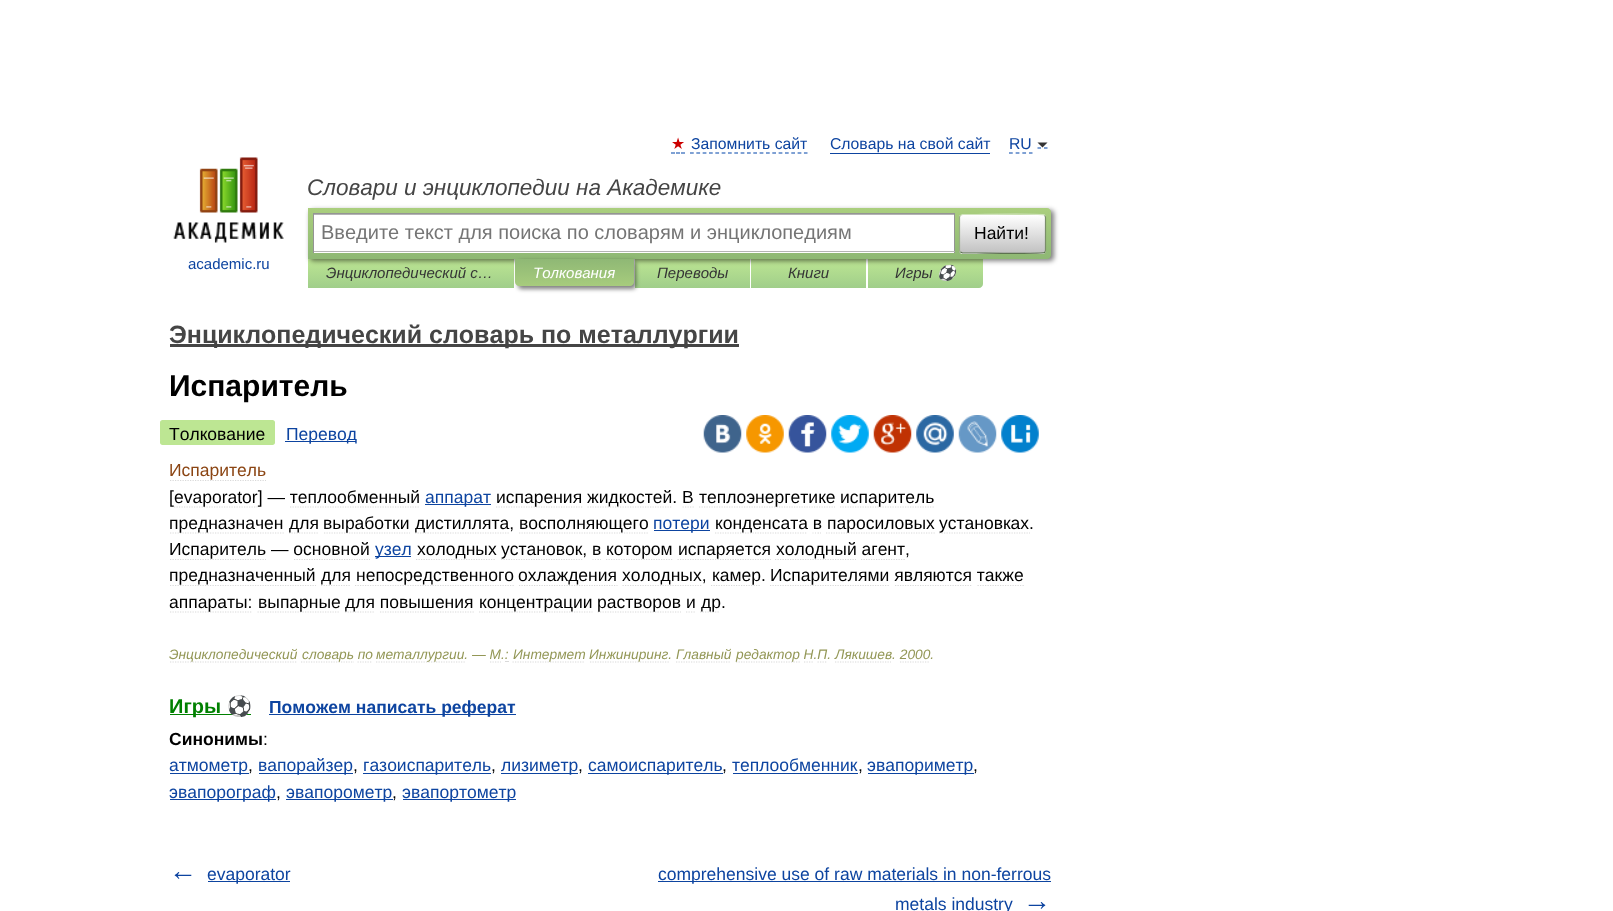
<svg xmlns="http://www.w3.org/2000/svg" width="1613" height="911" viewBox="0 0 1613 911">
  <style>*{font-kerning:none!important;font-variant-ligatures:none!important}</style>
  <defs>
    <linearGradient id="g1" gradientUnits="userSpaceOnUse" x1="411" y1="259" x2="411" y2="288"><stop offset="0" stop-color="#bde693"/><stop offset="1" stop-color="#a0ce8a"/></linearGradient>
    <linearGradient id="g2" gradientUnits="userSpaceOnUse" x1="693" y1="259" x2="693" y2="288"><stop offset="0" stop-color="#bde693"/><stop offset="1" stop-color="#a0ce8a"/></linearGradient>
    <linearGradient id="g3" gradientUnits="userSpaceOnUse" x1="809" y1="259" x2="809" y2="288"><stop offset="0" stop-color="#bde693"/><stop offset="1" stop-color="#a0ce8a"/></linearGradient>
    <linearGradient id="g4" gradientUnits="userSpaceOnUse" x1="925" y1="259" x2="925" y2="288"><stop offset="0" stop-color="#bde693"/><stop offset="1" stop-color="#a0ce8a"/></linearGradient>
    <filter id="blur1" x="-50%" y="-200%" width="200%" height="500%"><feGaussianBlur stdDeviation="2.5"/></filter>
    <linearGradient id="g5" gradientUnits="userSpaceOnUse" x1="679" y1="207" x2="679" y2="259"><stop offset="0" stop-color="#abcf7e"/><stop offset="1" stop-color="#8eb874"/></linearGradient>
    <clipPath id="clip1"><rect x="959" y="214" width="87" height="40" rx="4"/></clipPath>
    <linearGradient id="g6" gradientUnits="userSpaceOnUse" x1="1003" y1="215" x2="1003" y2="253"><stop offset="0" stop-color="#ffffff"/><stop offset="1" stop-color="#c1c1c1"/></linearGradient>
    <linearGradient id="g7" gradientUnits="userSpaceOnUse" x1="1003" y1="253" x2="1003" y2="290"><stop offset="0" stop-color="#ffffff"/><stop offset="1" stop-color="#c1c1c1"/></linearGradient>
    <filter id="blur2" x="-50%" y="-200%" width="200%" height="500%"><feGaussianBlur stdDeviation="2"/></filter>
    <linearGradient id="g8" gradientUnits="userSpaceOnUse" x1="574" y1="259" x2="574" y2="286"><stop offset="0" stop-color="#8fb875"/><stop offset="1" stop-color="#a7cc7d"/></linearGradient>
  </defs>
  <rect width="100%" height="100%" fill="#ffffff"/>
  <text x="671" y="149" font-family="DejaVu Sans" font-size="15.75" fill="#cc0000">★</text>
  <path d="M671 153H675M676 153H680M681 153H685" fill="none" stroke="#0044aa" stroke-width="1.2"/>
  <text x="691" y="149" font-family="Liberation Sans" font-size="15.75" fill="#0d44a0">Запомнить сайт</text>
  <path d="M690 153H807.5" fill="none" stroke="#0044aa" stroke-width="1.2" stroke-dasharray="3.75 2.58"/>
  <text x="830" y="149" font-family="Liberation Sans" font-size="15.75" fill="#0d44a0">Словарь на свой сайт</text>
  <rect x="830" y="153" width="160" height="1" fill="#0d44a0"/>
  <path d="M1009 153H1032.5" fill="none" stroke="#0044aa" stroke-width="1.2" stroke-dasharray="3.75 2.91"/>
  <path d="M1037.5 148H1041M1044 148H1047.5" fill="none" stroke="#0044aa" stroke-width="1.2"/>
  <text x="1009" y="149" font-family="Liberation Sans" font-size="15.75" fill="#0d44a0">RU</text>
  <path d="M1037.5 142.5H1047.5L1042.5 147.5Z" fill="#333333"/>
  <text x="307" y="195" font-family="Liberation Sans" font-size="22.5" font-style="italic" fill="#454545">Словари и энциклопедии на Академике</text>
  <rect x="308" y="259" width="206" height="29" fill="url(#g1)"/>
  <rect x="635" y="259" width="115" height="29" fill="url(#g2)"/>
  <rect x="751" y="259" width="115" height="29" fill="url(#g3)"/>
  <path d="M868 259H983V284C983 286 981 288 979 288H868Z" fill="url(#g4)"/>
  <rect x="310" y="210" width="744" height="51" rx="4" fill="#000000" fill-opacity="0.5" filter="url(#blur1)"/>
  <path d="M308 208H1047C1049 208 1051 210 1051 212V255C1051 257 1049 259 1047 259H308Z" fill="url(#g5)"/>
  <rect x="314" y="215" width="640" height="38" fill="#ffffff"/>
  <rect x="314" y="214" width="640" height="1" fill="#b3b3b3"/>
  <rect x="313" y="213" width="642" height="1" fill="#949494"/>
  <rect x="954" y="213" width="1" height="40" fill="#949494"/>
  <rect x="313" y="251" width="642" height="1" fill="#b4b4b4"/>
  <rect x="313" y="213" width="1" height="40" fill="#949494"/>
  <text x="321" y="239" font-family="Liberation Sans" font-size="20" fill="#757575">Введите текст для поиска по словарям и энциклопедиям</text>
  <g clip-path="url(#clip1)">
    <rect x="959" y="215" width="87" height="38" fill="url(#g6)"/>
    <rect x="959" y="253" width="87" height="1" fill="url(#g7)"/>
  </g>
  <path d="M960.5 215.5L962.5 214.5H976C983.5 214.5 1042.5 213.5 1044.5 215V215.5" fill="none" stroke="#d1e4bc" stroke-width="1.2"/>
  <path d="M1044.5 215.5C1045.5 216 1045.5 216.5 1045.5 217.5V250C1045.5 251 1045.5 251.5 1044.5 252" fill="none" stroke="#7a8e69" stroke-width="1.2"/>
  <path d="M1044.5 252V252.5C1042.5 254 983.5 253 976 253H962.5L960.5 252" fill="none" stroke="#5d7250" stroke-width="1.2"/>
  <path d="M960.5 252C959.5 251.5 959.5 251 959.5 250V217.5C959.5 216.5 959.5 216 960.5 215.5" fill="none" stroke="#9aae89" stroke-width="1.2"/>
  <text x="974" y="239" font-family="Liberation Sans" font-size="17.5" fill="#000000">Найти!</text>
  <image x="173" y="157" width="111" height="86" href="img1.png"/>
  <text x="188" y="269" font-family="Liberation Sans" font-size="15" fill="#0d44a0">academic.ru</text>
  <text x="326" y="278" font-family="Liberation Sans" font-size="15" font-style="italic" fill="#353535">Энциклопедический с…</text>
  <rect x="518" y="261" width="118" height="28" rx="4" fill="#000000" fill-opacity="0.5" filter="url(#blur2)"/>
  <path d="M515 259H634V282C634 284 632 286 630 286H519C517 286 515 284 515 282Z" fill="url(#g8)"/>
  <text x="533" y="278" font-family="Liberation Sans" font-size="15" font-style="italic" fill="#ffffff">Толкования</text>
  <text x="657" y="278" font-family="Liberation Sans" font-size="15" font-style="italic" fill="#353535">Переводы</text>
  <text x="788" y="278" font-family="Liberation Sans" font-size="15" font-style="italic" fill="#353535">Книги</text>
  <text x="895" y="278" font-family="Liberation Sans" font-size="15" font-style="italic" fill="#353535">Игры</text>
  <text x="937" y="278" font-family="Noto Color Emoji" font-size="15" font-style="italic" fill="#353535">⚽</text>
  <rect x="170" y="344" width="569" height="3" fill="#454545"/>
  <text x="169" y="343" font-family="Liberation Sans" font-size="25" font-weight="bold" fill="#454545">Энциклопедический словарь по металлургии</text>
  <text x="169" y="396" font-family="Liberation Sans" font-size="30" font-weight="bold" fill="#000000">Испаритель</text>
  <path d="M162.5 420H170V445H162.5C161 445 160 444 160 442.5V422.5C160 421 161 420 162.5 420Z" fill="#bde693"/>
  <path d="M170 420H272.5C274 420 275 421 275 422.5V442.5C275 444 274 445 272.5 445H170Z" fill="#bde693"/>
  <text x="169" y="440" font-family="Liberation Sans" font-size="17.5" fill="#000000">Толкование</text>
  <rect x="285" y="441" width="71" height="1" fill="#0d44a0"/>
  <text x="286" y="440" font-family="Liberation Sans" font-size="17.5" fill="#0d44a0">Перевод</text>
  <image x="703" y="415" width="39" height="38" href="img2.png"/>
  <image x="746" y="415" width="38" height="38" href="img3.png"/>
  <image x="788" y="415" width="39" height="38" href="img4.png"/>
  <image x="831" y="415" width="38" height="38" href="img5.png"/>
  <image x="873" y="415" width="39" height="38" href="img6.png"/>
  <image x="916" y="415" width="38" height="38" href="img7.png"/>
  <image x="958" y="415" width="39" height="38" href="img8.png"/>
  <image x="1001" y="415" width="38" height="38" href="img9.png"/>
  <path d="M170 480.5H266" fill="none" stroke="#d9d9d9" stroke-width="1.2" stroke-dasharray="1.25 1.25"/>
  <text x="169" y="476" font-family="Liberation Sans" font-size="17.5" fill="#8b4513">Испаритель</text>
  <text x="169" y="503" font-family="Liberation Sans" font-size="17.5" fill="#000000">[</text>
  <path d="M174 507H257.5" fill="none" stroke="#d9d9d9" stroke-width="1.2" stroke-dasharray="1.25 1.25"/>
  <text x="174" y="503" font-family="Liberation Sans" font-size="17.5" fill="#000000">evaporator] — теплообменный</text>
  <rect x="425" y="504" width="66" height="1" fill="#0d44a0"/>
  <text x="425" y="503" font-family="Liberation Sans" font-size="17.5" fill="#0d44a0">аппарат</text>
  <path d="M496 507H582.5" fill="none" stroke="#d9d9d9" stroke-width="1.2" stroke-dasharray="1.25 1.25"/>
  <text x="496" y="503" font-family="Liberation Sans" font-size="17.5" fill="#000000">испарения</text>
  <path d="M587.5 507H672.5" fill="none" stroke="#d9d9d9" stroke-width="1.2" stroke-dasharray="1.25 1.25"/>
  <text x="587" y="503" font-family="Liberation Sans" font-size="17.5" fill="#000000">жидкостей. В</text>
  <path d="M699 507H835" fill="none" stroke="#d9d9d9" stroke-width="1.2" stroke-dasharray="1.25 1.25"/>
  <text x="699" y="503" font-family="Liberation Sans" font-size="17.5" fill="#000000">теплоэнергетике</text>
  <path d="M840 507H934" fill="none" stroke="#d9d9d9" stroke-width="1.2" stroke-dasharray="1.25 1.25"/>
  <text x="840" y="503" font-family="Liberation Sans" font-size="17.5" fill="#000000">испаритель</text>
  <path d="M290 507H420" fill="none" stroke="#d9d9d9" stroke-width="1.2" stroke-dasharray="1.25 1.25"/>
  <path d="M682.5 507H694" fill="none" stroke="#d9d9d9" stroke-width="1.2" stroke-dasharray="1.25 1.25"/>
  <path d="M170 533H284" fill="none" stroke="#d9d9d9" stroke-width="1.2" stroke-dasharray="1.25 1.25"/>
  <text x="169" y="529" font-family="Liberation Sans" font-size="17.5" fill="#000000">предназначен</text>
  <path d="M289 533H319" fill="none" stroke="#d9d9d9" stroke-width="1.2" stroke-dasharray="1.25 1.25"/>
  <text x="289" y="529" font-family="Liberation Sans" font-size="17.5" fill="#000000">для</text>
  <path d="M324 533H410" fill="none" stroke="#d9d9d9" stroke-width="1.2" stroke-dasharray="1.25 1.25"/>
  <text x="323" y="529" font-family="Liberation Sans" font-size="17.5" fill="#000000">выработки</text>
  <path d="M415 533H509" fill="none" stroke="#d9d9d9" stroke-width="1.2" stroke-dasharray="1.25 1.25"/>
  <text x="415" y="529" font-family="Liberation Sans" font-size="17.5" fill="#000000">дистиллята,</text>
  <path d="M519 533H649" fill="none" stroke="#d9d9d9" stroke-width="1.2" stroke-dasharray="1.25 1.25"/>
  <text x="519" y="529" font-family="Liberation Sans" font-size="17.5" fill="#000000">восполняющего</text>
  <rect x="654" y="530" width="56" height="1" fill="#0d44a0"/>
  <text x="653" y="529" font-family="Liberation Sans" font-size="17.5" fill="#0d44a0">потери</text>
  <path d="M715 533H807.5" fill="none" stroke="#d9d9d9" stroke-width="1.2" stroke-dasharray="1.25 1.25"/>
  <text x="715" y="529" font-family="Liberation Sans" font-size="17.5" fill="#000000">конденсата в</text>
  <path d="M826 533H935" fill="none" stroke="#d9d9d9" stroke-width="1.2" stroke-dasharray="1.25 1.25"/>
  <text x="827" y="529" font-family="Liberation Sans" font-size="17.5" fill="#000000">паросиловых</text>
  <path d="M939 533H1030" fill="none" stroke="#d9d9d9" stroke-width="1.2" stroke-dasharray="1.25 1.25"/>
  <text x="939" y="529" font-family="Liberation Sans" font-size="17.5" fill="#000000">установках.</text>
  <path d="M812.5 533H813.5M815 533H816M817.5 533H819M820 533H821" fill="none" stroke="#d9d9d9" stroke-width="1.2"/>
  <path d="M170 559.5H266" fill="none" stroke="#d9d9d9" stroke-width="1.2" stroke-dasharray="1.25 1.25"/>
  <text x="169" y="555" font-family="Liberation Sans" font-size="17.5" fill="#000000">Испаритель — основной</text>
  <rect x="375" y="556" width="36" height="1" fill="#0d44a0"/>
  <text x="375" y="555" font-family="Liberation Sans" font-size="17.5" fill="#0d44a0">узел</text>
  <path d="M416 559.5H496" fill="none" stroke="#d9d9d9" stroke-width="1.2" stroke-dasharray="1.25 1.25"/>
  <text x="417" y="555" font-family="Liberation Sans" font-size="17.5" fill="#000000">холодных</text>
  <path d="M501 559.5H582.5" fill="none" stroke="#d9d9d9" stroke-width="1.2" stroke-dasharray="1.25 1.25"/>
  <text x="501" y="555" font-family="Liberation Sans" font-size="17.5" fill="#000000">установок, в</text>
  <path d="M606 559.5H672.5" fill="none" stroke="#d9d9d9" stroke-width="1.2" stroke-dasharray="1.25 1.25"/>
  <text x="606" y="555" font-family="Liberation Sans" font-size="17.5" fill="#000000">котором</text>
  <path d="M677.5 559.5H771" fill="none" stroke="#d9d9d9" stroke-width="1.2" stroke-dasharray="1.25 1.25"/>
  <text x="678" y="555" font-family="Liberation Sans" font-size="17.5" fill="#000000">испаряется</text>
  <path d="M775 559.5H856" fill="none" stroke="#d9d9d9" stroke-width="1.2" stroke-dasharray="1.25 1.25"/>
  <text x="776" y="555" font-family="Liberation Sans" font-size="17.5" fill="#000000">холодный агент,</text>
  <path d="M294 559.5H370" fill="none" stroke="#d9d9d9" stroke-width="1.2" stroke-dasharray="1.25 1.25"/>
  <path d="M592.5 559.5H593.5M595 559.5H596M597.5 559.5H599M600 559.5H601" fill="none" stroke="#d9d9d9" stroke-width="1.2"/>
  <path d="M861 559.5H905" fill="none" stroke="#d9d9d9" stroke-width="1.2" stroke-dasharray="1.25 1.25"/>
  <path d="M170 585.5H316" fill="none" stroke="#d9d9d9" stroke-width="1.2" stroke-dasharray="1.25 1.25"/>
  <text x="169" y="581" font-family="Liberation Sans" font-size="17.5" fill="#000000">предназначенный</text>
  <path d="M321 585.5H351" fill="none" stroke="#d9d9d9" stroke-width="1.2" stroke-dasharray="1.25 1.25"/>
  <text x="321" y="581" font-family="Liberation Sans" font-size="17.5" fill="#000000">для</text>
  <path d="M355 585.5H514" fill="none" stroke="#d9d9d9" stroke-width="1.2" stroke-dasharray="1.25 1.25"/>
  <text x="356" y="581" font-family="Liberation Sans" font-size="17.5" fill="#000000">непосредственного</text>
  <path d="M519 585.5H617.5" fill="none" stroke="#d9d9d9" stroke-width="1.2" stroke-dasharray="1.25 1.25"/>
  <text x="518" y="581" font-family="Liberation Sans" font-size="17.5" fill="#000000">охлаждения</text>
  <path d="M622.5 585.5H702.5" fill="none" stroke="#d9d9d9" stroke-width="1.2" stroke-dasharray="1.25 1.25"/>
  <text x="622" y="581" font-family="Liberation Sans" font-size="17.5" fill="#000000">холодных,</text>
  <path d="M711 585.5H760" fill="none" stroke="#d9d9d9" stroke-width="1.2" stroke-dasharray="1.25 1.25"/>
  <text x="712" y="581" font-family="Liberation Sans" font-size="17.5" fill="#000000">камер.</text>
  <path d="M770 585.5H890" fill="none" stroke="#d9d9d9" stroke-width="1.2" stroke-dasharray="1.25 1.25"/>
  <text x="770" y="581" font-family="Liberation Sans" font-size="17.5" fill="#000000">Испарителями являются также</text>
  <path d="M895 585.5H972.5" fill="none" stroke="#d9d9d9" stroke-width="1.2" stroke-dasharray="1.25 1.25"/>
  <path d="M977.5 585.5H1024" fill="none" stroke="#d9d9d9" stroke-width="1.2" stroke-dasharray="1.25 1.25"/>
  <path d="M170 612H252.5" fill="none" stroke="#d9d9d9" stroke-width="1.2" stroke-dasharray="1.25 1.25"/>
  <text x="169" y="608" font-family="Liberation Sans" font-size="17.5" fill="#000000">аппараты:</text>
  <path d="M257.5 612H340" fill="none" stroke="#d9d9d9" stroke-width="1.2" stroke-dasharray="1.25 1.25"/>
  <text x="258" y="608" font-family="Liberation Sans" font-size="17.5" fill="#000000">выпарные</text>
  <path d="M345 612H375" fill="none" stroke="#d9d9d9" stroke-width="1.2" stroke-dasharray="1.25 1.25"/>
  <text x="345" y="608" font-family="Liberation Sans" font-size="17.5" fill="#000000">для повышения</text>
  <path d="M479 612H592.5" fill="none" stroke="#d9d9d9" stroke-width="1.2" stroke-dasharray="1.25 1.25"/>
  <text x="479" y="608" font-family="Liberation Sans" font-size="17.5" fill="#000000">концентрации</text>
  <path d="M597.5 612H681" fill="none" stroke="#d9d9d9" stroke-width="1.2" stroke-dasharray="1.25 1.25"/>
  <text x="597" y="608" font-family="Liberation Sans" font-size="17.5" fill="#000000">растворов и</text>
  <path d="M686 612H696M700 612H720" fill="none" stroke="#d9d9d9" stroke-width="1.2" stroke-dasharray="1.25 1.25"/>
  <text x="701" y="608" font-family="Liberation Sans" font-size="17.5" fill="#000000">др.</text>
  <path d="M380 612H474" fill="none" stroke="#d9d9d9" stroke-width="1.2" stroke-dasharray="1.25 1.25"/>
  <path d="M170 662H297.5" fill="none" stroke="#d9d9d9" stroke-width="1.2" stroke-dasharray="1.25 1.25"/>
  <text x="169" y="659" font-family="Liberation Sans" font-size="13.75" font-style="italic" fill="#939756">Энциклопедический</text>
  <path d="M301 662H354" fill="none" stroke="#d9d9d9" stroke-width="1.2" stroke-dasharray="1.25 1.25"/>
  <text x="302" y="659" font-family="Liberation Sans" font-size="13.75" font-style="italic" fill="#939756">словарь по</text>
  <path d="M357.5 662H372.5" fill="none" stroke="#d9d9d9" stroke-width="1.2" stroke-dasharray="1.25 1.25"/>
  <path d="M376 662H465" fill="none" stroke="#d9d9d9" stroke-width="1.2" stroke-dasharray="1.25 1.25"/>
  <text x="376" y="659" font-family="Liberation Sans" font-size="13.75" font-style="italic" fill="#939756">металлургии. — М.:</text>
  <path d="M490 662H501" fill="none" stroke="#d9d9d9" stroke-width="1.2" stroke-dasharray="1.25 1.25"/>
  <rect x="505" y="661" width="4" height="1" fill="#d9d9d9"/>
  <path d="M512.5 662H585" fill="none" stroke="#d9d9d9" stroke-width="1.2" stroke-dasharray="1.25 1.25"/>
  <text x="513" y="659" font-family="Liberation Sans" font-size="13.75" font-style="italic" fill="#939756">Интермет</text>
  <path d="M590 662H669" fill="none" stroke="#d9d9d9" stroke-width="1.2" stroke-dasharray="1.25 1.25"/>
  <text x="589" y="659" font-family="Liberation Sans" font-size="13.75" font-style="italic" fill="#939756">Инжиниринг. Главный</text>
  <path d="M676 662H731" fill="none" stroke="#d9d9d9" stroke-width="1.2" stroke-dasharray="1.25 1.25"/>
  <path d="M736 662H800" fill="none" stroke="#d9d9d9" stroke-width="1.2" stroke-dasharray="1.25 1.25"/>
  <text x="736" y="659" font-family="Liberation Sans" font-size="13.75" font-style="italic" fill="#939756">редактор Н.П. Лякишев. 2000.</text>
  <path d="M804 662H814M817.5 662H827.5" fill="none" stroke="#d9d9d9" stroke-width="1.2" stroke-dasharray="1.25 1.25"/>
  <path d="M835 662H891" fill="none" stroke="#d9d9d9" stroke-width="1.2" stroke-dasharray="1.25 1.25"/>
  <path d="M900 662H930" fill="none" stroke="#d9d9d9" stroke-width="1.2" stroke-dasharray="1.25 1.25"/>
  <rect x="170" y="714" width="81" height="1" fill="#008000"/>
  <text x="169" y="713" font-family="Liberation Sans" font-size="20" font-weight="bold" fill="#008000">Игры</text>
  <text x="227" y="713" font-family="Noto Color Emoji" font-size="20" font-weight="bold" fill="#008000">⚽</text>
  <rect x="269" y="714" width="247" height="1" fill="#0d44a0"/>
  <text x="269" y="713" font-family="Liberation Sans" font-size="17.5" font-weight="bold" fill="#0d44a0">Поможем написать реферат</text>
  <text x="169" y="745" font-family="Liberation Sans" font-size="17.5" font-weight="bold" fill="#000000">Синонимы</text>
  <text x="263" y="745" font-family="Liberation Sans" font-size="17.5" fill="#000000">:</text>
  <rect x="170" y="773" width="79" height="1" fill="#0d44a0"/>
  <text x="169" y="771" font-family="Liberation Sans" font-size="17.5" fill="#0d44a0">атмометр</text>
  <text x="248" y="771" font-family="Liberation Sans" font-size="17.5" fill="#000000">,</text>
  <rect x="259" y="773" width="94" height="1" fill="#0d44a0"/>
  <text x="258" y="771" font-family="Liberation Sans" font-size="17.5" fill="#0d44a0">вапорайзер</text>
  <text x="353" y="771" font-family="Liberation Sans" font-size="17.5" fill="#000000">,</text>
  <rect x="363" y="773" width="128" height="1" fill="#0d44a0"/>
  <text x="363" y="771" font-family="Liberation Sans" font-size="17.5" fill="#0d44a0">газоиспаритель</text>
  <text x="491" y="771" font-family="Liberation Sans" font-size="17.5" fill="#000000">,</text>
  <rect x="501" y="773" width="77" height="1" fill="#0d44a0"/>
  <text x="501" y="771" font-family="Liberation Sans" font-size="17.5" fill="#0d44a0">лизиметр</text>
  <text x="578" y="771" font-family="Liberation Sans" font-size="17.5" fill="#000000">,</text>
  <rect x="588" y="773" width="135" height="1" fill="#0d44a0"/>
  <text x="588" y="771" font-family="Liberation Sans" font-size="17.5" fill="#0d44a0">самоиспаритель</text>
  <text x="722" y="771" font-family="Liberation Sans" font-size="17.5" fill="#000000">,</text>
  <text x="732" y="771" font-family="Liberation Sans" font-size="17.5" fill="#0d44a0">теплообменник</text>
  <rect x="733" y="773" width="125" height="1" fill="#0d44a0"/>
  <text x="858" y="771" font-family="Liberation Sans" font-size="17.5" fill="#000000">,</text>
  <rect x="868" y="773" width="106" height="1" fill="#0d44a0"/>
  <text x="867" y="771" font-family="Liberation Sans" font-size="17.5" fill="#0d44a0">эвапориметр</text>
  <text x="973" y="771" font-family="Liberation Sans" font-size="17.5" fill="#000000">,</text>
  <rect x="170" y="799" width="106" height="1" fill="#0d44a0"/>
  <text x="169" y="798" font-family="Liberation Sans" font-size="17.5" fill="#0d44a0">эвапорограф</text>
  <text x="276" y="798" font-family="Liberation Sans" font-size="17.5" fill="#000000">,</text>
  <rect x="286" y="799" width="107" height="1" fill="#0d44a0"/>
  <text x="286" y="798" font-family="Liberation Sans" font-size="17.5" fill="#0d44a0">эвапорометр</text>
  <text x="392" y="798" font-family="Liberation Sans" font-size="17.5" fill="#000000">,</text>
  <rect x="403" y="799" width="113" height="1" fill="#0d44a0"/>
  <text x="402" y="798" font-family="Liberation Sans" font-size="17.5" fill="#0d44a0">эвапортометр</text>
  <text x="169" y="880" font-family="Liberation Sans" font-size="28" font-weight="bold" fill="#0d44a0">←</text>
  <rect x="208" y="881" width="82" height="1" fill="#0d44a0"/>
  <text x="207" y="880" font-family="Liberation Sans" font-size="17.5" fill="#0d44a0">evaporator</text>
  <rect x="658" y="881" width="393" height="1" fill="#0d44a0"/>
  <text x="658" y="880" font-family="Liberation Sans" font-size="17.5" fill="#0d44a0">comprehensive use of raw materials in non-ferrous</text>
  <text x="895" y="910" font-family="Liberation Sans" font-size="17.5" fill="#0d44a0">metals industry</text>
  <text x="1023" y="910" font-family="Liberation Sans" font-size="28" font-weight="bold" fill="#0d44a0">→</text>
</svg>
